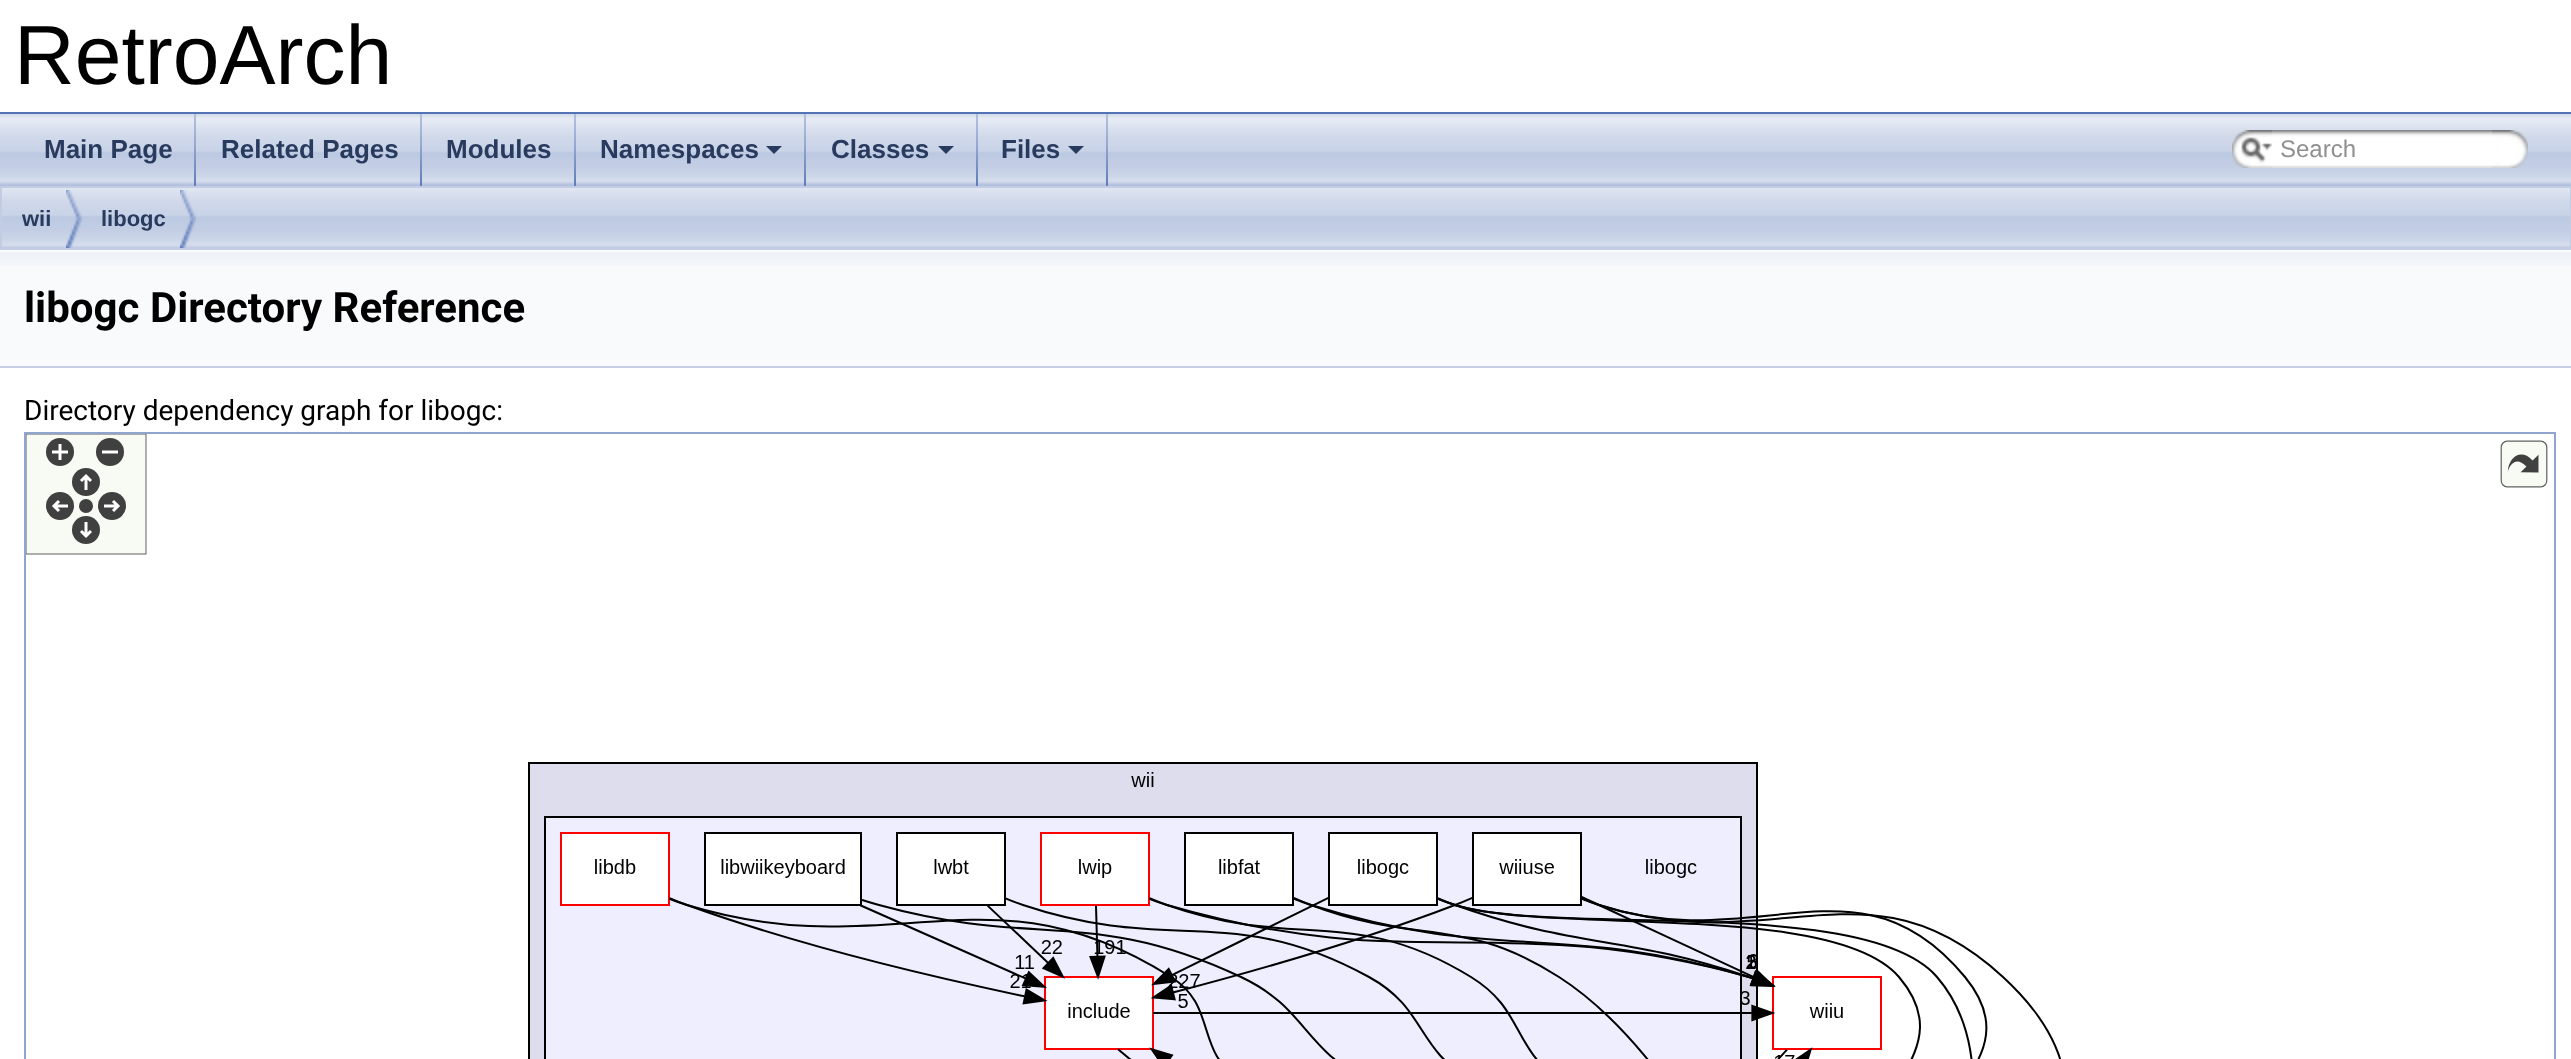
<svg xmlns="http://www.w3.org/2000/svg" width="2571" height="1059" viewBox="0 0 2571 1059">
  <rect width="100%" height="100%" fill="#ffffff"/>
  <rect x="0" y="112" width="2571" height="2" fill="#5373b4"/>
  <text x="14" y="84" font-family="Liberation Sans" font-size="84" fill="#000000">RetroArch</text>
  <image x="0" y="114" width="2571" height="72" href="img1.png"/>
  <image x="194" y="114" width="2" height="72" href="img2.png"/>
  <text x="44" y="158" font-family="Liberation Sans" font-size="26" font-weight="bold" fill="#283a5d">Main Page</text>
  <image x="420" y="114" width="2" height="72" href="img2.png"/>
  <text x="221" y="158" font-family="Liberation Sans" font-size="26" font-weight="bold" fill="#283a5d">Related Pages</text>
  <image x="574" y="114" width="2" height="72" href="img2.png"/>
  <text x="446" y="158" font-family="Liberation Sans" font-size="26" font-weight="bold" fill="#283a5d">Modules</text>
  <image x="804" y="114" width="2" height="72" href="img2.png"/>
  <text x="600" y="158" font-family="Liberation Sans" font-size="26" font-weight="bold" fill="#283a5d">Namespaces</text>
  <path d="M766 146H782L774 154Z" fill="#283a5d"/>
  <image x="976" y="114" width="2" height="72" href="img2.png"/>
  <text x="831" y="158" font-family="Liberation Sans" font-size="26" font-weight="bold" fill="#283a5d">Classes</text>
  <path d="M938 146H954L946 154Z" fill="#283a5d"/>
  <image x="1106" y="114" width="2" height="72" href="img2.png"/>
  <text x="1001" y="158" font-family="Liberation Sans" font-size="26" font-weight="bold" fill="#283a5d">Files</text>
  <path d="M1068 146H1084L1076 154Z" fill="#283a5d"/>
  <image x="2232" y="130" width="40" height="38" href="img3.png"/>
  <image x="2241" y="137" width="31" height="26" href="img4.png"/>
  <image x="2272" y="130" width="220" height="38" href="img5.png"/>
  <text x="2280" y="157" font-family="Liberation Sans" font-size="24" fill="#909090">Search</text>
  <image x="2492" y="130" width="36" height="38" href="img6.png"/>
  <image x="2" y="188" width="2568" height="60" href="img7.png"/>
  <rect x="1" y="187" width="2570" height="62" fill="none" stroke="#c2cde4" stroke-width="2"/>
  <image x="66" y="190" width="16" height="58" href="img8.png"/>
  <text x="22" y="226" font-family="Liberation Sans" font-size="22" font-weight="bold" fill="#283a5d">wii</text>
  <image x="180" y="190" width="16" height="58" href="img8.png"/>
  <text x="101" y="226" font-family="Liberation Sans" font-size="22" font-weight="bold" fill="#283a5d">libogc</text>
  <rect x="0" y="266" width="2571" height="100" fill="#f9fafc"/>
  <image x="0" y="250" width="2571" height="16" href="img9.png"/>
  <rect x="0" y="366" width="2571" height="2" fill="#c4cfe5"/>
  <text x="24" y="322" font-family="Roboto" font-size="42" font-weight="bold" fill="#000000">libogc Directory Reference</text>
  <text x="24" y="420" font-family="Roboto" font-size="28" fill="#000000">Directory dependency graph for libogc:</text>
  <rect x="25" y="433" width="2530" height="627" fill="none" stroke="#90a5ce" stroke-width="2"/>
  <image x="26" y="434" width="2522" height="625" href="img10.png"/>
</svg>
